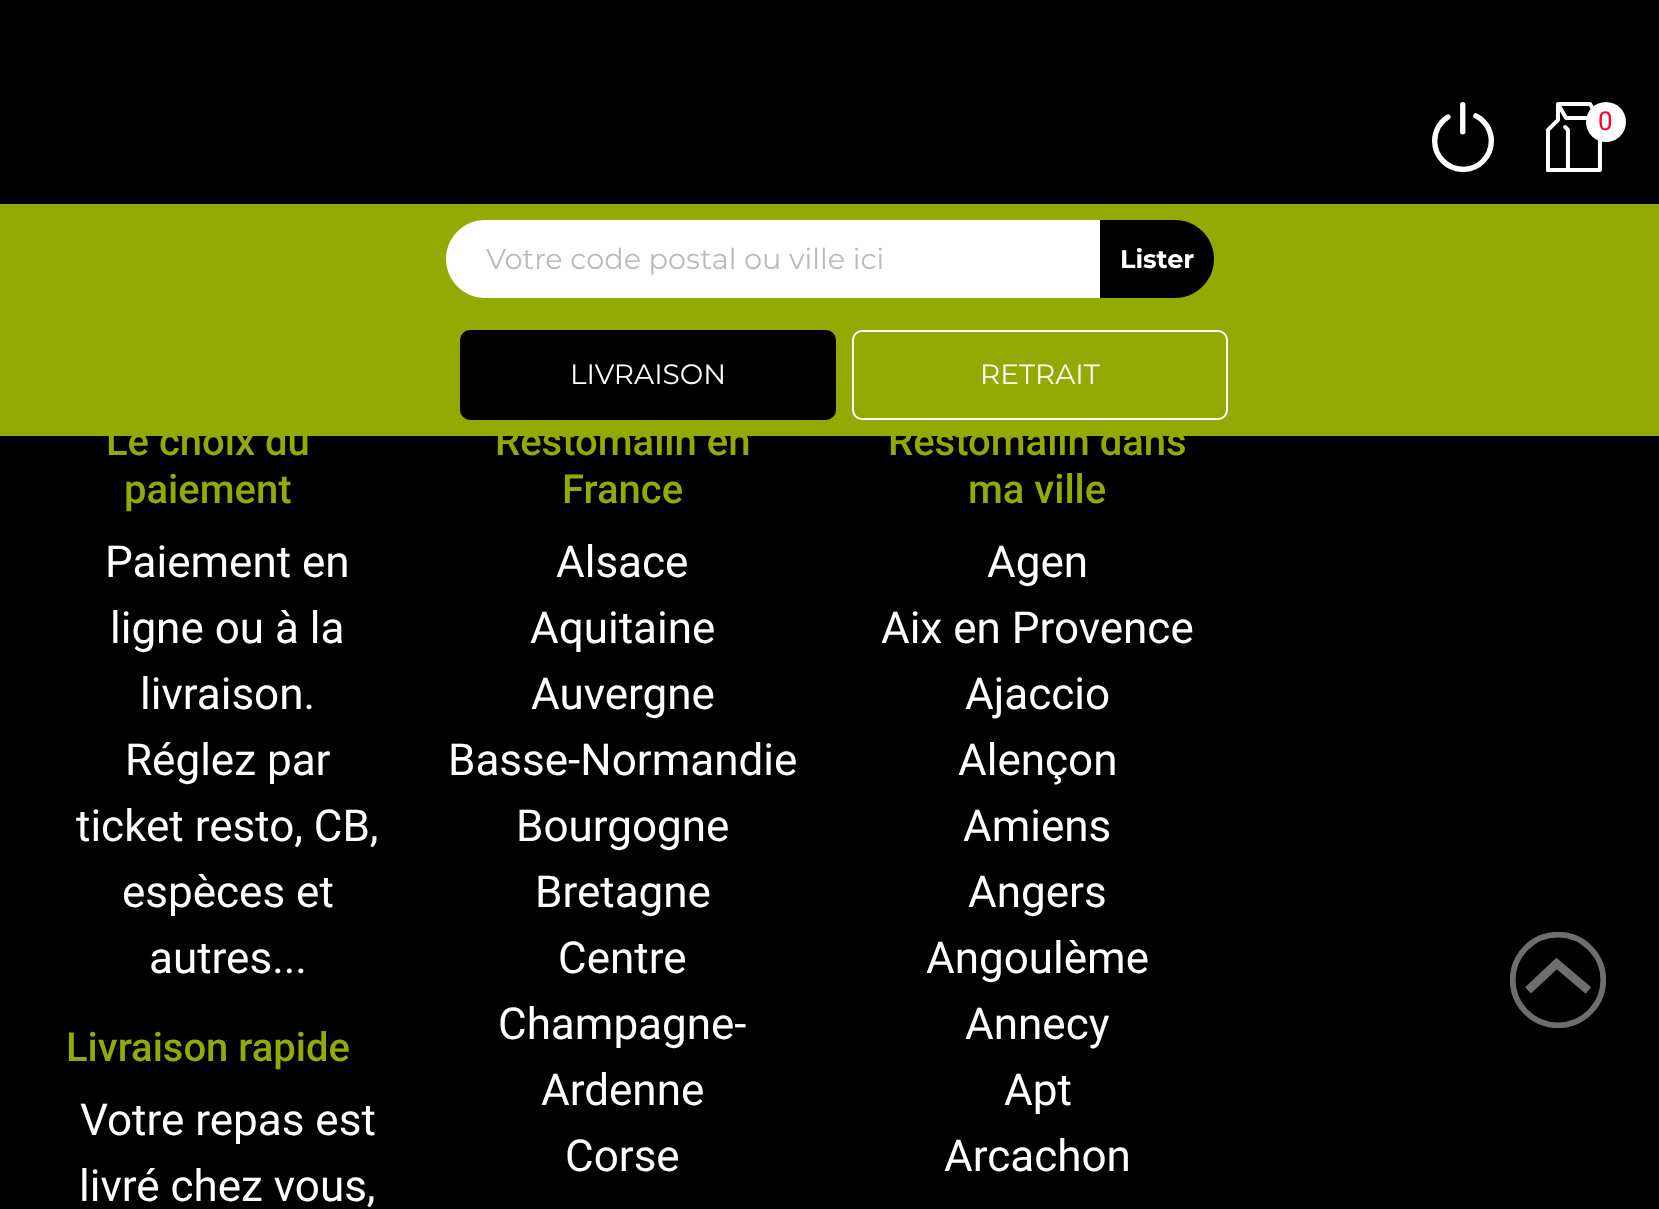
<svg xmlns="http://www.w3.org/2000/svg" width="1659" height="1209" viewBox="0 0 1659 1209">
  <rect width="100%" height="100%" fill="#000000"/>
  <rect x="0" y="204" width="1659" height="232" fill="#92aa03"/>
  <image x="1432" y="102" width="62" height="70" href="img1.png"/>
  <image x="1546" y="102" width="56" height="70" href="img2.png"/>
  <circle cx="1606" cy="122" r="20" fill="#ffffff"/>
  <text x="1598" y="130" font-family="Roboto" font-size="26" fill="#ff002a">0</text>
  <path d="M485 220H1100V298H485C463.5 298 446 280.5 446 259C446 237.5 463.5 220 485 220Z" fill="#ffffff"/>
  <text x="486" y="269" font-family="Montserrat" font-size="28.75" fill="#bbbbbb">Votre code postal ou ville ici</text>
  <path d="M1100 220H1175C1196.5 220 1214 237.5 1214 259C1214 280.5 1196.5 298 1175 298H1100Z" fill="#000000"/>
  <text x="1120" y="268" font-family="Montserrat" font-size="25.5" font-weight="bold" fill="#ffffff">Lister</text>
  <rect x="461" y="331" width="374" height="88" rx="9" fill="#000000" stroke="#000000" stroke-width="2"/>
  <text x="570" y="384" font-family="Montserrat" font-size="28" fill="#ffffff">LIVRAISON</text>
  <rect x="853" y="331" width="374" height="88" rx="9" fill="none" stroke="#ffffff" stroke-width="2"/>
  <text x="980" y="384" font-family="Montserrat" font-size="28" fill="#ffffff">RETRAIT</text>
  <text x="106" y="455" font-family="Roboto" font-size="40" font-weight="500" fill="#92aa03">Le choix du</text>
  <text x="124" y="503" font-family="Roboto" font-size="40" font-weight="500" fill="#92aa03">paiement</text>
  <text x="105" y="577" font-family="Roboto" font-size="44" fill="#ffffff">Paiement en</text>
  <text x="110" y="643" font-family="Roboto" font-size="44" fill="#ffffff">ligne ou à la</text>
  <text x="140" y="709" font-family="Roboto" font-size="44" fill="#ffffff">livraison.</text>
  <text x="125" y="775" font-family="Roboto" font-size="44" fill="#ffffff">Réglez par</text>
  <text x="76" y="841" font-family="Roboto" font-size="44" fill="#ffffff">ticket resto, CB,</text>
  <text x="122" y="907" font-family="Roboto" font-size="44" fill="#ffffff">espèces et</text>
  <text x="149" y="973" font-family="Roboto" font-size="44" fill="#ffffff">autres...</text>
  <text x="66" y="1061" font-family="Roboto" font-size="40" font-weight="500" fill="#92aa03">Livraison rapide</text>
  <text x="80" y="1135" font-family="Roboto" font-size="44" fill="#ffffff">Votre repas est</text>
  <text x="79" y="1201" font-family="Roboto" font-size="44" fill="#ffffff">livré chez vous,</text>
  <text x="495" y="455" font-family="Roboto" font-size="40" font-weight="500" fill="#92aa03">Restomalin en</text>
  <text x="562" y="503" font-family="Roboto" font-size="40" font-weight="500" fill="#92aa03">France</text>
  <text x="556" y="577" font-family="Roboto" font-size="44" fill="#ffffff">Alsace</text>
  <text x="530" y="643" font-family="Roboto" font-size="44" fill="#ffffff">Aquitaine</text>
  <text x="531" y="709" font-family="Roboto" font-size="44" fill="#ffffff">Auvergne</text>
  <text x="448" y="775" font-family="Roboto" font-size="44" fill="#ffffff">Basse-Normandie</text>
  <text x="516" y="841" font-family="Roboto" font-size="44" fill="#ffffff">Bourgogne</text>
  <text x="535" y="907" font-family="Roboto" font-size="44" fill="#ffffff">Bretagne</text>
  <text x="558" y="973" font-family="Roboto" font-size="44" fill="#ffffff">Centre</text>
  <text x="498" y="1039" font-family="Roboto" font-size="44" fill="#ffffff">Champagne-</text>
  <text x="541" y="1105" font-family="Roboto" font-size="44" fill="#ffffff">Ardenne</text>
  <text x="565" y="1171" font-family="Roboto" font-size="44" fill="#ffffff">Corse</text>
  <text x="888" y="455" font-family="Roboto" font-size="40" font-weight="500" fill="#92aa03">Restomalin dans</text>
  <text x="968" y="503" font-family="Roboto" font-size="40" font-weight="500" fill="#92aa03">ma ville</text>
  <text x="987" y="577" font-family="Roboto" font-size="44" fill="#ffffff">Agen</text>
  <text x="881" y="643" font-family="Roboto" font-size="44" fill="#ffffff">Aix en Provence</text>
  <text x="965" y="709" font-family="Roboto" font-size="44" fill="#ffffff">Ajaccio</text>
  <text x="958" y="775" font-family="Roboto" font-size="44" fill="#ffffff">Alençon</text>
  <text x="963" y="841" font-family="Roboto" font-size="44" fill="#ffffff">Amiens</text>
  <text x="968" y="907" font-family="Roboto" font-size="44" fill="#ffffff">Angers</text>
  <text x="926" y="973" font-family="Roboto" font-size="44" fill="#ffffff">Angoulème</text>
  <text x="965" y="1039" font-family="Roboto" font-size="44" fill="#ffffff">Annecy</text>
  <text x="1004" y="1105" font-family="Roboto" font-size="44" fill="#ffffff">Apt</text>
  <text x="944" y="1171" font-family="Roboto" font-size="44" fill="#ffffff">Arcachon</text>
  <image x="1510" y="931" width="96" height="98" href="img3.png"/>
</svg>
